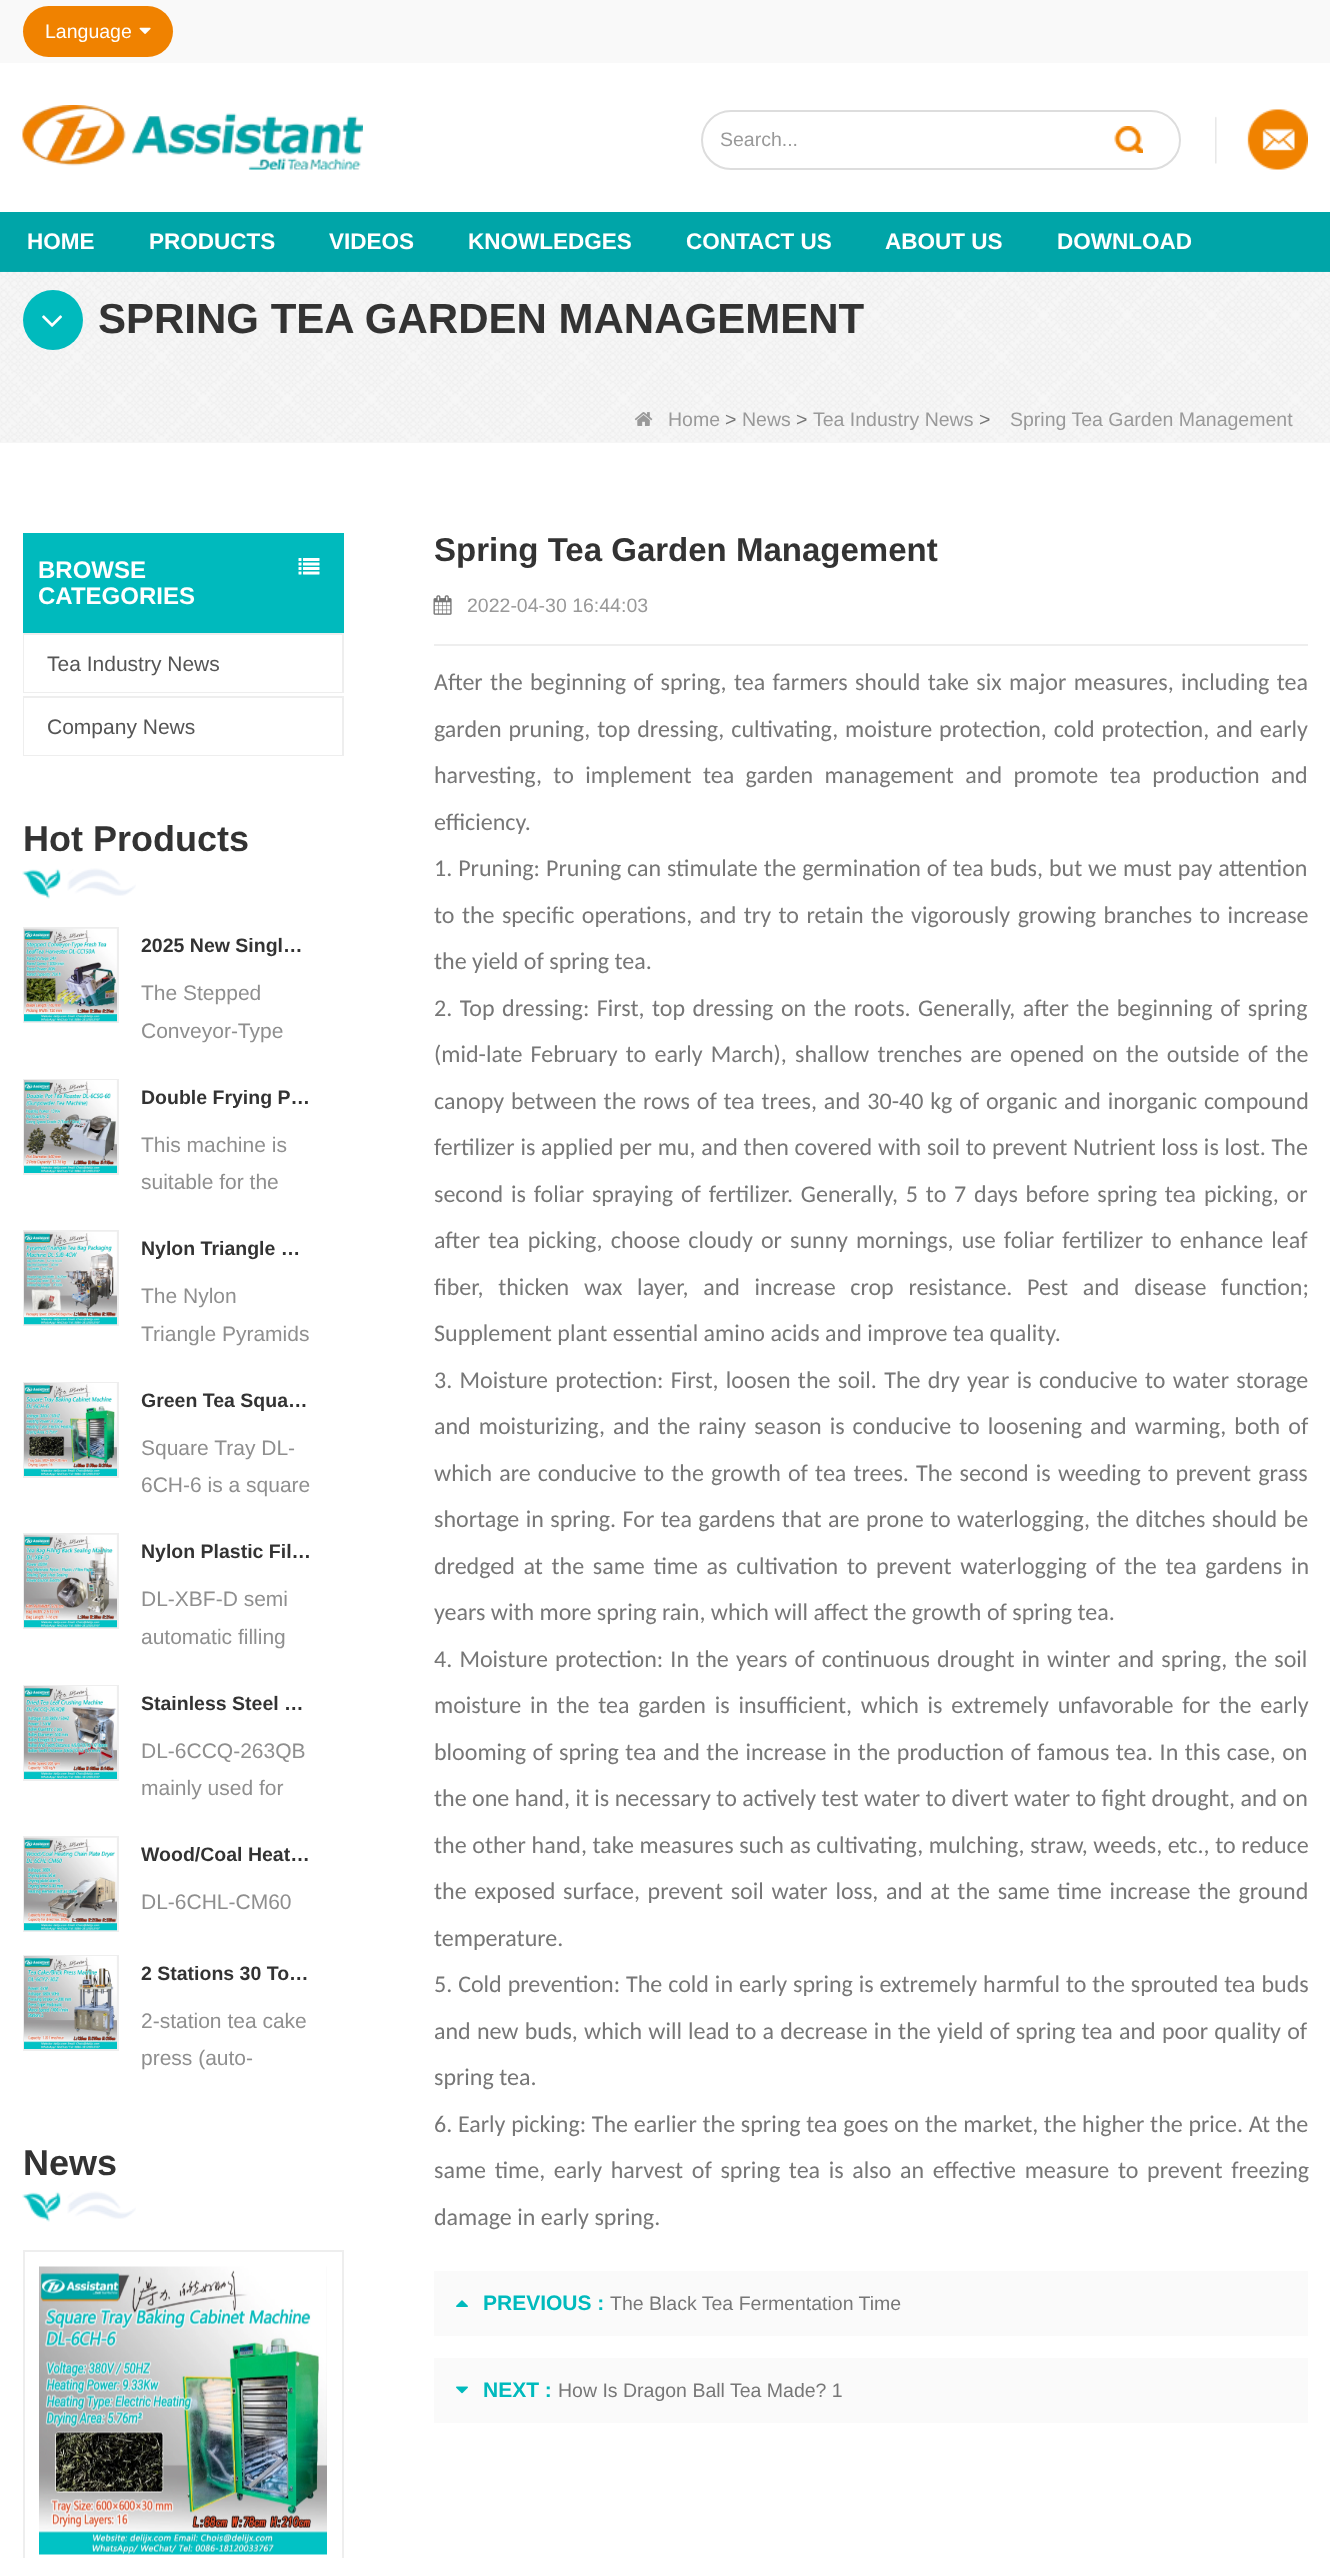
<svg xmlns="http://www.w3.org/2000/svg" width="1330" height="2558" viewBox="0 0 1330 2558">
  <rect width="100%" height="100%" fill="#ffffff"/>
  <rect x="0" y="0" width="1330" height="63" fill="#f9f9f9"/>
  <rect x="23" y="6" width="150" height="51" rx="25.5" fill="#f08200"/>
  <text x="45" y="38" font-family="Liberation Sans" font-size="19.5" fill="#ffffff">Language</text>
  <image x="139" y="27" width="12" height="7" href="img1.png"/>
  <image x="22" y="105" width="341" height="65" href="img2.png"/>
  <rect x="702" y="111" width="478" height="58" rx="29" fill="none" stroke="#dddddd" stroke-width="2"/>
  <text x="720" y="146" font-family="Liberation Sans" font-size="19.5" fill="#999999">Search...</text>
  <image x="1114" y="126" width="29" height="27" href="img3.png"/>
  <image x="1215" y="109" width="93" height="61" href="img4.png"/>
  <rect x="0" y="212" width="1330" height="60" fill="#00a5a8"/>
  <text x="27" y="249" font-family="Liberation Sans" font-size="22.5" font-weight="bold" fill="#ffffff">HOME</text>
  <text x="149" y="249" font-family="Liberation Sans" font-size="22.5" font-weight="bold" fill="#ffffff">PRODUCTS</text>
  <text x="329" y="249" font-family="Liberation Sans" font-size="22.5" font-weight="bold" fill="#ffffff">VIDEOS</text>
  <text x="468" y="249" font-family="Liberation Sans" font-size="22.5" font-weight="bold" fill="#ffffff">KNOWLEDGES</text>
  <text x="686" y="249" font-family="Liberation Sans" font-size="22.5" font-weight="bold" fill="#ffffff">CONTACT US</text>
  <text x="885" y="249" font-family="Liberation Sans" font-size="22.5" font-weight="bold" fill="#ffffff">ABOUT US</text>
  <text x="1057" y="249" font-family="Liberation Sans" font-size="22.5" font-weight="bold" fill="#ffffff">DOWNLOAD</text>
  <rect x="0" y="272" width="1330" height="171" fill="#f6f6f6"/>
  <image x="0" y="271" width="1330" height="171" href="img5.png"/>
  <circle cx="53" cy="320" r="30" fill="#00babd"/>
  <image x="42" y="315" width="20" height="12" href="img6.png"/>
  <text x="98" y="333" font-family="Liberation Sans" font-size="42" font-weight="bold" fill="#333333">SPRING TEA GARDEN MANAGEMENT</text>
  <image x="634" y="412" width="19" height="14" href="img7.png"/>
  <text x="668" y="426" font-family="Liberation Sans" font-size="19.5" fill="#999999">Home</text>
  <text x="725" y="426" font-family="Liberation Sans" font-size="19.5" fill="#777777">&gt;</text>
  <text x="742" y="426" font-family="Liberation Sans" font-size="19.5" fill="#999999">News</text>
  <text x="796" y="426" font-family="Liberation Sans" font-size="19.5" fill="#777777">&gt;</text>
  <text x="813" y="426" font-family="Liberation Sans" font-size="19.5" fill="#999999">Tea Industry News</text>
  <text x="979" y="426" font-family="Liberation Sans" font-size="19.5" fill="#777777">&gt;</text>
  <text x="1010" y="426" font-family="Liberation Sans" font-size="19.5" fill="#999999">Spring Tea Garden Management</text>
  <rect x="23" y="533" width="321" height="100" fill="#00babd"/>
  <text x="38" y="578" font-family="Liberation Sans" font-size="24" font-weight="bold" fill="#ffffff">BROWSE</text>
  <image x="298" y="558" width="22" height="17" href="img8.png"/>
  <text x="38" y="604" font-family="Liberation Sans" font-size="24" font-weight="bold" fill="#ffffff">CATEGORIES</text>
  <rect x="24" y="634" width="319" height="58" fill="none" stroke="#eeeeee" stroke-width="2"/>
  <rect x="24" y="635" width="318" height="57" fill="#ffffff"/>
  <text x="47" y="671" font-family="Liberation Sans" font-size="21" fill="#555555">Tea Industry News</text>
  <rect x="24" y="697" width="319" height="58" fill="none" stroke="#eeeeee" stroke-width="2"/>
  <rect x="24" y="698" width="318" height="57" fill="#ffffff"/>
  <text x="47" y="734" font-family="Liberation Sans" font-size="21" fill="#555555">Company News</text>
  <image x="22" y="868" width="114" height="31" href="img9.png"/>
  <text x="23" y="851" font-family="Liberation Sans" font-size="36" font-weight="bold" fill="#333333">Hot Products</text>
  <rect x="24" y="928" width="94" height="94" fill="none" stroke="#eeeeee" stroke-width="2"/>
  <image x="24" y="928" width="93" height="94" href="img10.png"/>
  <text x="141" y="952" font-family="Liberation Sans" font-size="19.5" font-weight="bold" fill="#333333">2025 New Singl…</text>
  <text x="141" y="1000" font-family="Liberation Sans" font-size="21" fill="#8f8f8f">The Stepped</text>
  <text x="141" y="1038" font-family="Liberation Sans" font-size="21" fill="#8f8f8f">Conveyor-Type</text>
  <rect x="24" y="1080" width="94" height="94" fill="none" stroke="#eeeeee" stroke-width="2"/>
  <image x="24" y="1080" width="93" height="93" href="img11.png"/>
  <text x="141" y="1104" font-family="Liberation Sans" font-size="19.5" font-weight="bold" fill="#333333">Double Frying P…</text>
  <text x="141" y="1152" font-family="Liberation Sans" font-size="21" fill="#8f8f8f">This machine is</text>
  <text x="141" y="1189" font-family="Liberation Sans" font-size="21" fill="#8f8f8f">suitable for the</text>
  <rect x="24" y="1231" width="94" height="94" fill="none" stroke="#eeeeee" stroke-width="2"/>
  <image x="24" y="1231" width="93" height="94" href="img12.png"/>
  <text x="141" y="1255" font-family="Liberation Sans" font-size="19.5" font-weight="bold" fill="#333333">Nylon Triangle …</text>
  <text x="141" y="1303" font-family="Liberation Sans" font-size="21" fill="#8f8f8f">The Nylon</text>
  <text x="141" y="1341" font-family="Liberation Sans" font-size="21" fill="#8f8f8f">Triangle Pyramids</text>
  <rect x="24" y="1383" width="94" height="94" fill="none" stroke="#eeeeee" stroke-width="2"/>
  <image x="24" y="1383" width="93" height="93" href="img13.png"/>
  <text x="141" y="1407" font-family="Liberation Sans" font-size="19.5" font-weight="bold" fill="#333333">Green Tea Squa…</text>
  <text x="141" y="1455" font-family="Liberation Sans" font-size="21" fill="#8f8f8f">Square Tray DL-</text>
  <text x="141" y="1492" font-family="Liberation Sans" font-size="21" fill="#8f8f8f">6CH-6 is a square</text>
  <rect x="24" y="1534" width="94" height="94" fill="none" stroke="#eeeeee" stroke-width="2"/>
  <image x="24" y="1534" width="93" height="94" href="img14.png"/>
  <text x="141" y="1558" font-family="Liberation Sans" font-size="19.5" font-weight="bold" fill="#333333">Nylon Plastic Fil…</text>
  <text x="141" y="1606" font-family="Liberation Sans" font-size="21" fill="#8f8f8f">DL-XBF-D semi</text>
  <text x="141" y="1644" font-family="Liberation Sans" font-size="21" fill="#8f8f8f">automatic filling</text>
  <rect x="24" y="1686" width="94" height="94" fill="none" stroke="#eeeeee" stroke-width="2"/>
  <image x="24" y="1686" width="93" height="93" href="img15.png"/>
  <text x="141" y="1710" font-family="Liberation Sans" font-size="19.5" font-weight="bold" fill="#333333">Stainless Steel …</text>
  <text x="141" y="1758" font-family="Liberation Sans" font-size="21" fill="#8f8f8f">DL-6CCQ-263QB</text>
  <text x="141" y="1795" font-family="Liberation Sans" font-size="21" fill="#8f8f8f">mainly used for</text>
  <rect x="24" y="1837" width="94" height="94" fill="none" stroke="#eeeeee" stroke-width="2"/>
  <image x="24" y="1837" width="93" height="94" href="img16.png"/>
  <text x="141" y="1861" font-family="Liberation Sans" font-size="19.5" font-weight="bold" fill="#333333">Wood/Coal Heat…</text>
  <text x="141" y="1909" font-family="Liberation Sans" font-size="21" fill="#8f8f8f">DL-6CHL-CM60</text>
  <rect x="24" y="1956" width="94" height="94" fill="none" stroke="#eeeeee" stroke-width="2"/>
  <image x="24" y="1956" width="93" height="93" href="img17.png"/>
  <text x="141" y="1980" font-family="Liberation Sans" font-size="19.5" font-weight="bold" fill="#333333">2 Stations 30 To…</text>
  <text x="141" y="2028" font-family="Liberation Sans" font-size="21" fill="#8f8f8f">2-station tea cake</text>
  <text x="141" y="2065" font-family="Liberation Sans" font-size="21" fill="#8f8f8f">press (auto-</text>
  <image x="22" y="2191" width="114" height="31" href="img9.png"/>
  <text x="23" y="2175" font-family="Liberation Sans" font-size="36" font-weight="bold" fill="#333333">News</text>
  <rect x="24" y="2251" width="319" height="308" fill="none" stroke="#eeeeee" stroke-width="2"/>
  <image x="39" y="2266" width="288" height="289" href="img18.png"/>
  <text x="434" y="561" font-family="Liberation Sans" font-size="33" font-weight="bold" fill="#333333">Spring Tea Garden Management</text>
  <image x="433" y="595" width="19" height="20" href="img19.png"/>
  <text x="467" y="612" font-family="Liberation Sans" font-size="19.5" fill="#999999">2022-04-30 16:44:03</text>
  <rect x="434" y="644" width="874" height="2" fill="#eeeeee"/>
  <text x="434" y="690" word-spacing="1.9" font-family="Carlito" font-size="24" fill="#777777">After the beginning of spring, tea farmers should take six major measures, including tea</text>
  <text x="434" y="737" word-spacing="1.5" font-family="Carlito" font-size="24" fill="#777777">garden pruning, top dressing, cultivating, moisture protection, cold protection, and early</text>
  <text x="434" y="783" word-spacing="6" font-family="Carlito" font-size="24" fill="#777777">harvesting, to implement tea garden management and promote tea production and</text>
  <text x="434" y="830" font-family="Carlito" font-size="24" fill="#777777">efficiency.</text>
  <text x="434" y="876" word-spacing="0.5" font-family="Carlito" font-size="24" fill="#777777">1. Pruning:</text>
  <text x="546" y="876" font-family="Carlito" font-size="24" fill="#777777">Pruning</text>
  <text x="627" y="876" word-spacing="0.5" font-family="Carlito" font-size="24" fill="#777777">can stimulate the germination of tea buds, but we must pay attention</text>
  <text x="434" y="923" word-spacing="2" font-family="Carlito" font-size="24" fill="#777777">to the specific operations, and try to retain the vigorously growing branches to increase</text>
  <text x="434" y="969" font-family="Carlito" font-size="24" fill="#777777">the yield of spring tea.</text>
  <text x="434" y="1016" word-spacing="2.1" font-family="Carlito" font-size="24" fill="#777777">2. Top dressing: First, top dressing on the roots. Generally, after the beginning of spring</text>
  <text x="434" y="1062" word-spacing="2.75" font-family="Carlito" font-size="24" fill="#777777">(mid-late February to early March), shallow trenches are opened on the outside of the</text>
  <text x="434" y="1109" word-spacing="1.4" font-family="Carlito" font-size="24" fill="#777777">canopy between the rows of tea trees, and 30-40 kg of organic and inorganic compound</text>
  <text x="434" y="1155" word-spacing="0.3" font-family="Carlito" font-size="24" fill="#777777">fertilizer is applied per mu, and then covered with soil to prevent Nutrient loss is lost. The</text>
  <text x="434" y="1202" word-spacing="2.4" font-family="Carlito" font-size="24" fill="#777777">second is foliar spraying of fertilizer. Generally, 5 to 7 days before spring tea picking, or</text>
  <text x="434" y="1248" word-spacing="2.75" font-family="Carlito" font-size="24" fill="#777777">after tea picking, choose cloudy or sunny mornings, use foliar fertilizer to enhance leaf</text>
  <text x="434" y="1295" word-spacing="9.25" font-family="Carlito" font-size="24" fill="#777777">fiber, thicken wax layer, and increase crop resistance. Pest and disease function;</text>
  <text x="434" y="1341" font-family="Carlito" font-size="24" fill="#777777">Supplement plant essential amino acids and improve tea quality.</text>
  <text x="434" y="1388" word-spacing="1.9" font-family="Carlito" font-size="24" fill="#777777">3. Moisture protection: First, loosen the soil. The dry year is conducive to water storage</text>
  <text x="434" y="1434" word-spacing="2.6" font-family="Carlito" font-size="24" fill="#777777">and moisturizing, and the rainy season is conducive to loosening and warming, both of</text>
  <text x="434" y="1481" word-spacing="1.75" font-family="Carlito" font-size="24" fill="#777777">which are conducive to the growth of tea trees. The second is weeding to prevent grass</text>
  <text x="434" y="1527" word-spacing="1" font-family="Carlito" font-size="24" fill="#777777">shortage in spring. For tea gardens that are prone to waterlogging, the ditches should be</text>
  <text x="434" y="1574" word-spacing="3.25" font-family="Carlito" font-size="24" fill="#777777">dredged at the same time as cultivation to prevent waterlogging of the tea gardens in</text>
  <text x="434" y="1620" font-family="Carlito" font-size="24" fill="#777777">years with more spring rain, which will affect the growth of spring tea.</text>
  <text x="434" y="1667" word-spacing="1.75" font-family="Carlito" font-size="24" fill="#777777">4. Moisture protection: In the years of continuous drought in winter and spring, the soil</text>
  <text x="434" y="1713" word-spacing="3.4" font-family="Carlito" font-size="24" fill="#777777">moisture in the tea garden is insufficient, which is extremely unfavorable for the early</text>
  <text x="434" y="1760" word-spacing="1.1" font-family="Carlito" font-size="24" fill="#777777">blooming of spring tea and the increase in the production of famous tea. In this case, on</text>
  <text x="434" y="1806" font-family="Carlito" font-size="24" fill="#777777">the one hand, it is necessary to actively test water to divert water to fight drought, and on</text>
  <text x="434" y="1853" word-spacing="0.25" font-family="Carlito" font-size="24" fill="#777777">the other hand, take measures such as cultivating, mulching, straw, weeds, etc., to reduce</text>
  <text x="434" y="1899" word-spacing="2.25" font-family="Carlito" font-size="24" fill="#777777">the exposed surface, prevent soil water loss, and at the same time increase the ground</text>
  <text x="434" y="1946" font-family="Carlito" font-size="24" fill="#777777">temperature.</text>
  <text x="434" y="1992" word-spacing="0.5" font-family="Carlito" font-size="24" fill="#777777">5. Cold prevention: The cold in early spring is extremely harmful to the sprouted tea buds</text>
  <text x="434" y="2039" word-spacing="0.75" font-family="Carlito" font-size="24" fill="#777777">and new buds, which will lead to a decrease in the yield of spring tea and poor quality of</text>
  <text x="434" y="2085" font-family="Carlito" font-size="24" fill="#777777">spring tea.</text>
  <text x="434" y="2132" word-spacing="0.25" font-family="Carlito" font-size="24" fill="#777777">6. Early picking: The earlier the spring tea goes on the market, the higher the price. At the</text>
  <text x="434" y="2178" word-spacing="3.25" font-family="Carlito" font-size="24" fill="#777777">same time, early harvest of spring tea is also an effective measure to prevent freezing</text>
  <text x="434" y="2225" font-family="Carlito" font-size="24" fill="#777777">damage in early spring.</text>
  <rect x="434" y="2271" width="874" height="65" fill="#fafafa"/>
  <image x="456" y="2300" width="12" height="7" href="img20.png"/>
  <text x="483" y="2310" font-family="Liberation Sans" font-size="21" font-weight="bold" fill="#00babd">PREVIOUS :</text>
  <text x="610" y="2310" font-family="Liberation Sans" font-size="19.5" fill="#777777">The Black Tea Fermentation Time</text>
  <rect x="434" y="2358" width="874" height="65" fill="#fafafa"/>
  <image x="456" y="2386" width="12" height="8" href="img21.png"/>
  <text x="483" y="2397" font-family="Liberation Sans" font-size="21" font-weight="bold" fill="#00babd">NEXT :</text>
  <text x="558" y="2397" font-family="Liberation Sans" font-size="19.5" fill="#777777">How Is Dragon Ball Tea Made? 1</text>
</svg>
